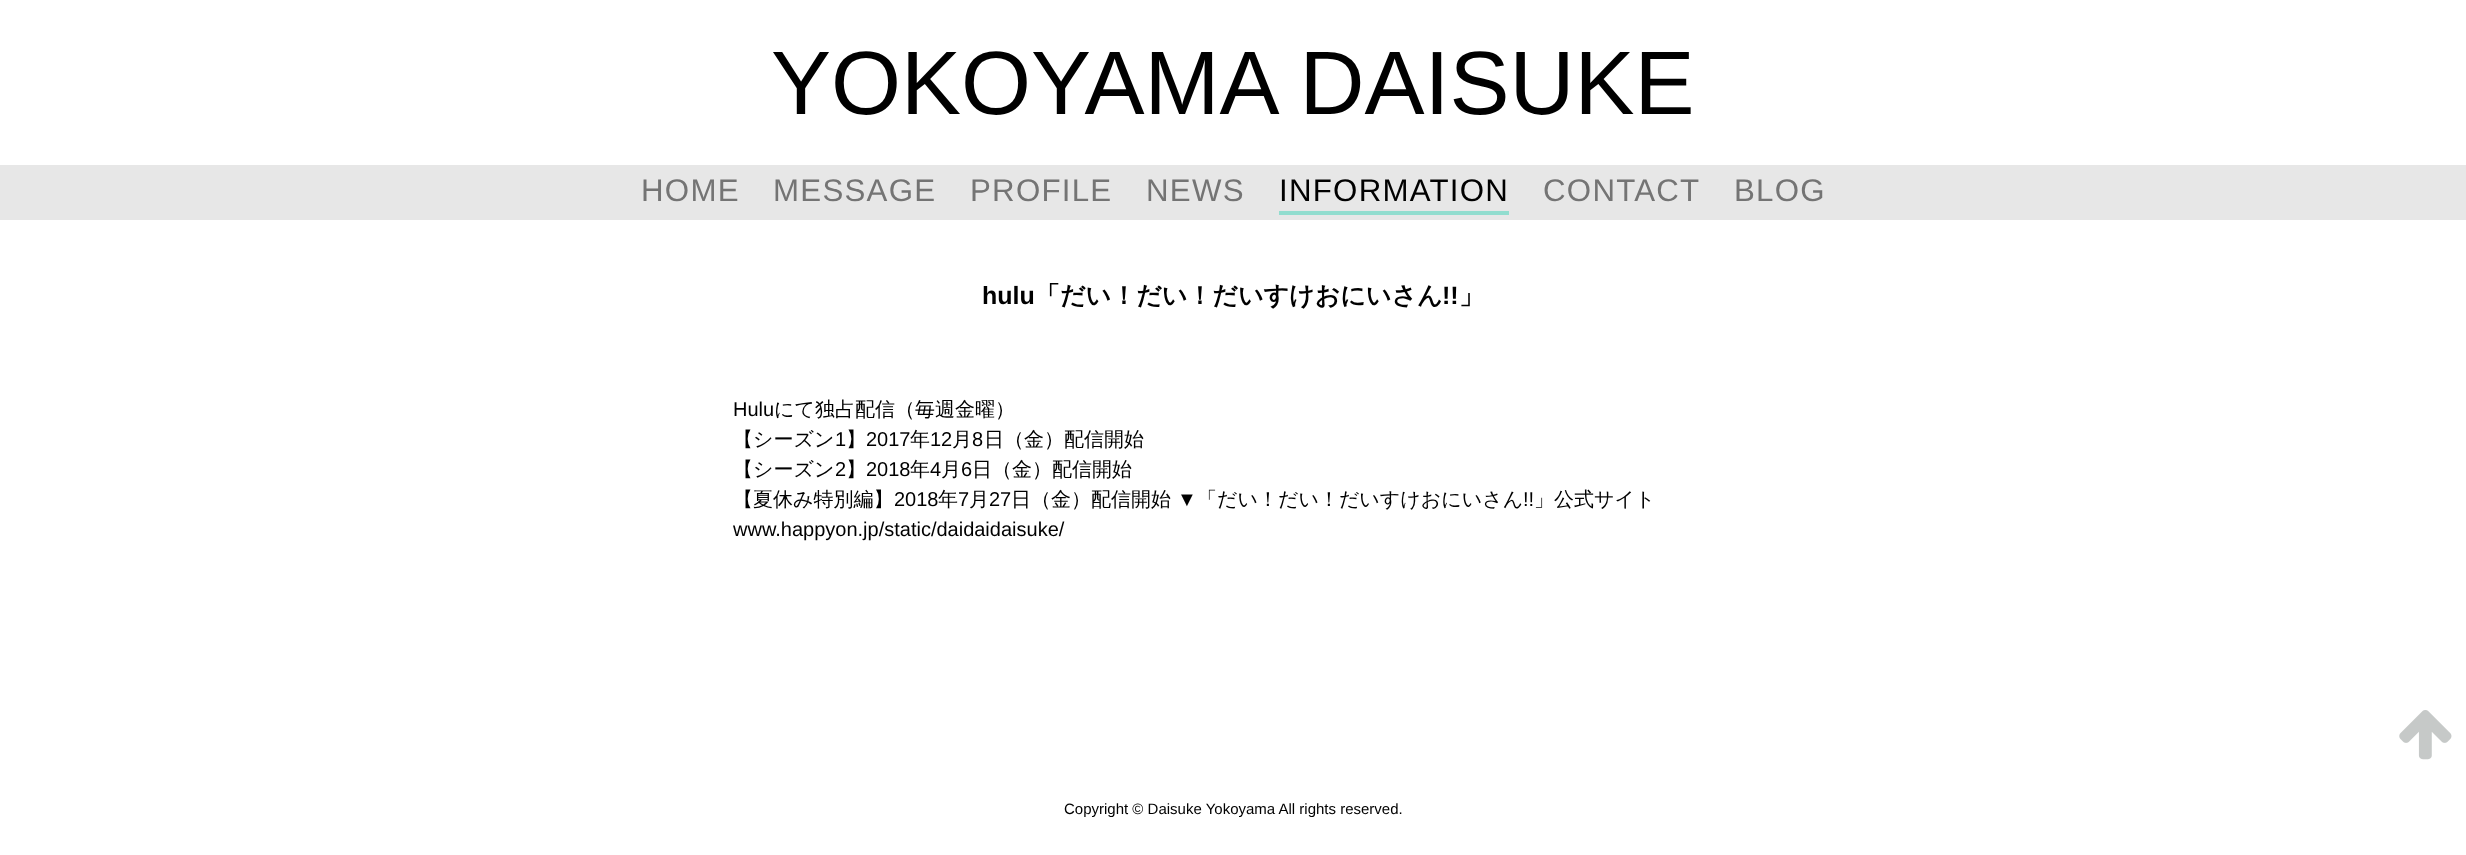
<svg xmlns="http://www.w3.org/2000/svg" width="2466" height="855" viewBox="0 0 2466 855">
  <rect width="100%" height="100%" fill="#ffffff"/>
  <text x="771" y="114" font-family="Liberation Sans" font-size="90" fill="#000000">YOKOYAMA DAISUKE</text>
  <rect x="0" y="165" width="2466" height="55" fill="#e7e7e7"/>
  <text x="641" y="201" font-family="Liberation Sans" font-size="31.25" letter-spacing="1.25" fill="#747474">HOME</text>
  <text x="773" y="201" font-family="Liberation Sans" font-size="31.25" letter-spacing="1.25" fill="#747474">MESSAGE</text>
  <text x="970" y="201" font-family="Liberation Sans" font-size="31.25" letter-spacing="1.25" fill="#747474">PROFILE</text>
  <text x="1146" y="201" font-family="Liberation Sans" font-size="31.25" letter-spacing="1.25" fill="#747474">NEWS</text>
  <text x="1279" y="201" font-family="Liberation Sans" font-size="31.25" letter-spacing="1.25" fill="#000000">INFORMATION</text>
  <rect x="1279" y="211" width="230" height="4" fill="#92ddcf"/>
  <text x="1543" y="201" font-family="Liberation Sans" font-size="31.25" letter-spacing="1.25" fill="#747474">CONTACT</text>
  <text x="1734" y="201" font-family="Liberation Sans" font-size="31.25" letter-spacing="1.25" fill="#747474">BLOG</text>
  <text x="982" y="304" font-family="Liberation Sans" font-size="25" font-weight="bold" fill="#000000">hulu</text>
  <text x="1035" y="304" font-family="WenQuanYi Zen Hei" font-size="25" font-weight="bold" fill="#000000">「だい！だい！だいすけおにいさん</text>
  <text x="1442" y="304" font-family="Liberation Sans" font-size="25" font-weight="bold" fill="#000000">!!</text>
  <text x="1459" y="304" font-family="WenQuanYi Zen Hei" font-size="25" font-weight="bold" fill="#000000">」</text>
  <text x="733" y="416" font-family="Liberation Sans" font-size="20" fill="#000000">Hulu</text>
  <text x="774" y="416" font-family="WenQuanYi Zen Hei" font-size="20" font-weight="500" fill="#000000">にて独占配信（毎週金曜）</text>
  <text x="733" y="446" font-family="WenQuanYi Zen Hei" font-size="20" font-weight="500" fill="#000000">【シーズン</text>
  <text x="835" y="446" font-family="Liberation Sans" font-size="20" fill="#000000">1</text>
  <text x="846" y="446" font-family="WenQuanYi Zen Hei" font-size="20" font-weight="500" fill="#000000">】</text>
  <text x="866" y="446" font-family="Liberation Sans" font-size="20" fill="#000000">2017</text>
  <text x="910" y="446" font-family="WenQuanYi Zen Hei" font-size="20" font-weight="500" fill="#000000">年</text>
  <text x="930" y="446" font-family="Liberation Sans" font-size="20" fill="#000000">12</text>
  <text x="952" y="446" font-family="WenQuanYi Zen Hei" font-size="20" font-weight="500" fill="#000000">月</text>
  <text x="972" y="446" font-family="Liberation Sans" font-size="20" fill="#000000">8</text>
  <text x="984" y="446" font-family="WenQuanYi Zen Hei" font-size="20" font-weight="500" fill="#000000">日（金）配信開始</text>
  <text x="733" y="476" font-family="WenQuanYi Zen Hei" font-size="20" font-weight="500" fill="#000000">【シーズン</text>
  <text x="835" y="476" font-family="Liberation Sans" font-size="20" fill="#000000">2</text>
  <text x="846" y="476" font-family="WenQuanYi Zen Hei" font-size="20" font-weight="500" fill="#000000">】</text>
  <text x="866" y="476" font-family="Liberation Sans" font-size="20" fill="#000000">2018</text>
  <text x="910" y="476" font-family="WenQuanYi Zen Hei" font-size="20" font-weight="500" fill="#000000">年</text>
  <text x="930" y="476" font-family="Liberation Sans" font-size="20" fill="#000000">4</text>
  <text x="941" y="476" font-family="WenQuanYi Zen Hei" font-size="20" font-weight="500" fill="#000000">月</text>
  <text x="961" y="476" font-family="Liberation Sans" font-size="20" fill="#000000">6</text>
  <text x="972" y="476" font-family="WenQuanYi Zen Hei" font-size="20" font-weight="500" fill="#000000">日（金）配信開始</text>
  <text x="733" y="506" font-family="WenQuanYi Zen Hei" font-size="20" font-weight="500" fill="#000000">【夏休み特別編】</text>
  <text x="894" y="506" font-family="Liberation Sans" font-size="20" fill="#000000">2018</text>
  <text x="938" y="506" font-family="WenQuanYi Zen Hei" font-size="20" font-weight="500" fill="#000000">年</text>
  <text x="958" y="506" font-family="Liberation Sans" font-size="20" fill="#000000">7</text>
  <text x="969" y="506" font-family="WenQuanYi Zen Hei" font-size="20" font-weight="500" fill="#000000">月</text>
  <text x="989" y="506" font-family="Liberation Sans" font-size="20" fill="#000000">27</text>
  <text x="1011" y="506" font-family="WenQuanYi Zen Hei" font-size="20" font-weight="500" fill="#000000">日（金）配信開始</text>
  <text x="1177" y="506" font-family="Liberation Sans" font-size="20" fill="#000000">▼</text>
  <text x="1197" y="506" font-family="WenQuanYi Zen Hei" font-size="20" font-weight="500" fill="#000000">「だい！だい！だいすけおにいさん</text>
  <text x="1523" y="506" font-family="Liberation Sans" font-size="20" fill="#000000">!!</text>
  <text x="1534" y="506" font-family="WenQuanYi Zen Hei" font-size="20" font-weight="500" fill="#000000">」公式サイト</text>
  <text x="733" y="536" font-family="Liberation Sans" font-size="20" fill="#000000">www.happyon.jp/static/daidaidaisuke/</text>
  <image x="2399" y="710" width="53" height="50" href="img1.png"/>
  <text x="1064" y="814" font-family="Liberation Sans" font-size="15" fill="#000000">Copyright © Daisuke Yokoyama All rights reserved.</text>
</svg>
